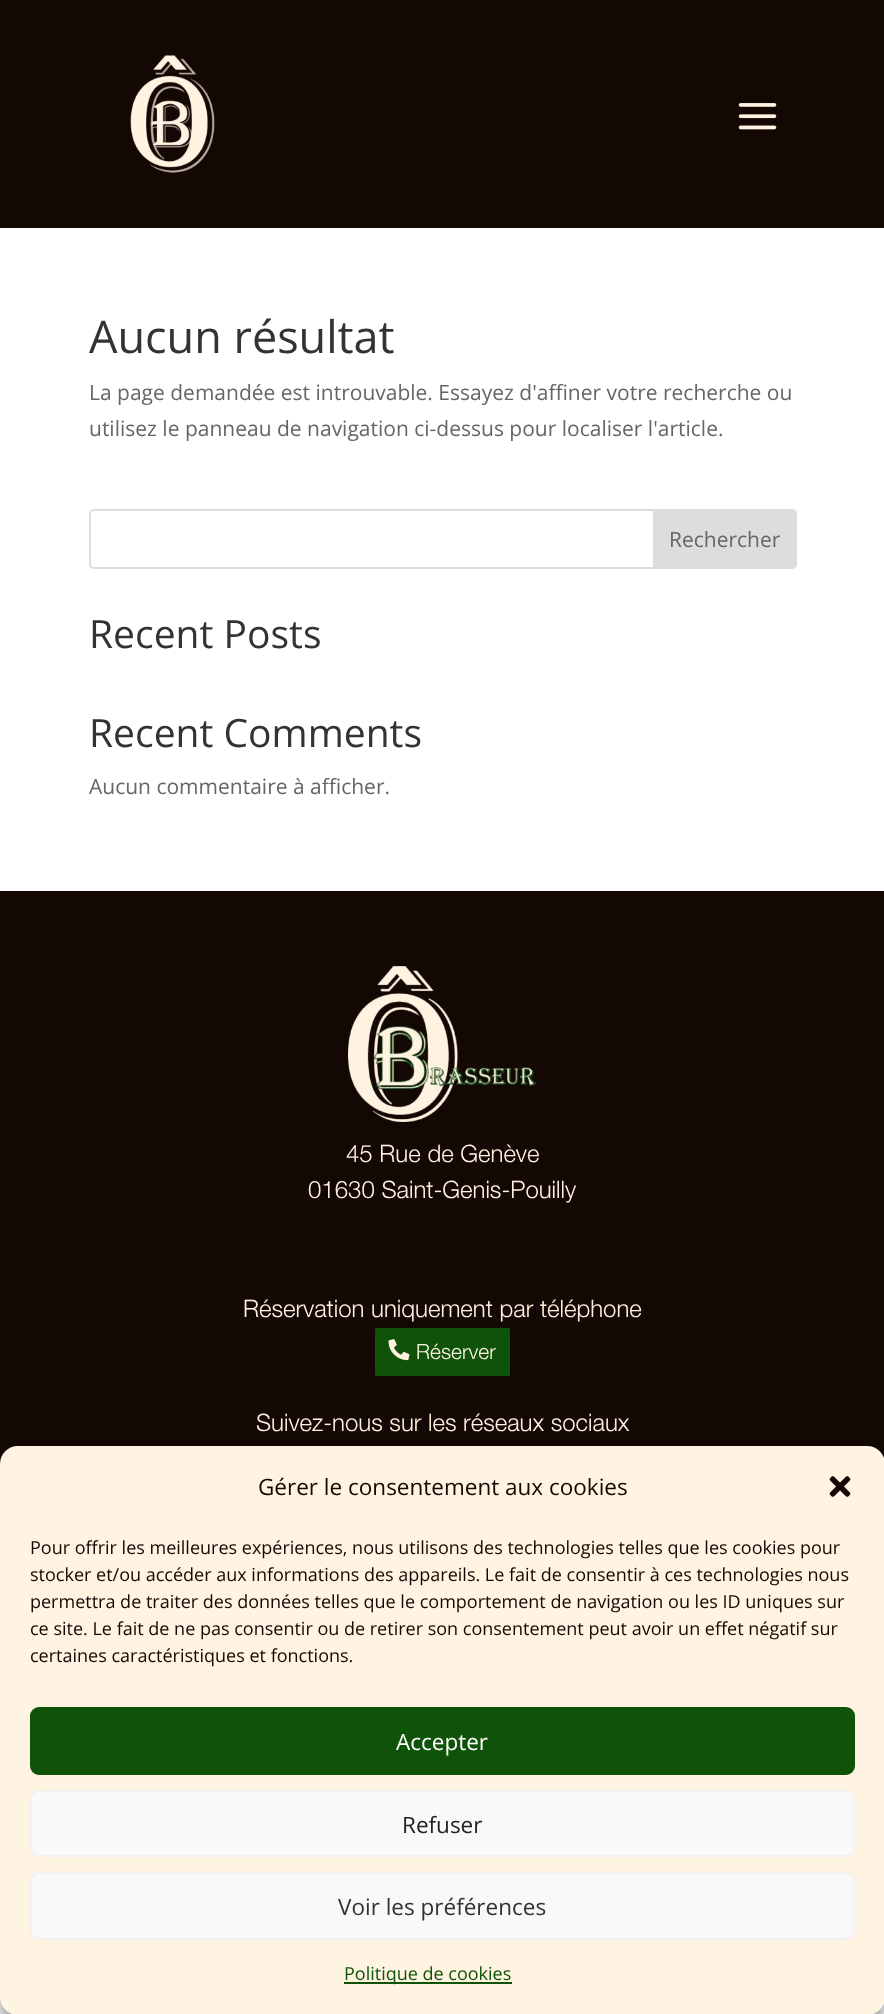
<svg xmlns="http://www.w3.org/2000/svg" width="884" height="2014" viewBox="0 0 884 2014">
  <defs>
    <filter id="blur1" x="-50%" y="-200%" width="200%" height="500%"><feGaussianBlur stdDeviation="4.5"/></filter>
    <filter id="blur2" x="-50%" y="-200%" width="200%" height="500%"><feGaussianBlur stdDeviation="15"/></filter>
  </defs>
  <rect width="100%" height="100%" fill="#ffffff"/>
  <rect x="0" y="0" width="884" height="228" fill="#140804"/>
  <image x="130" y="55" width="85" height="118" href="img1.png"/>
  <image x="738" y="103" width="39" height="27" href="img2.png"/>
  <text x="89" y="353" font-family="Open Sans" font-size="45" fill="#333333">Aucun résultat</text>
  <text x="89" y="400" font-family="Open Sans" font-size="21" fill="#666666">La page demandée est introuvable. Essayez d'affiner votre recherche ou</text>
  <text x="89" y="436" font-family="Open Sans" font-size="21" fill="#666666">utilisez le panneau de navigation ci-dessus pour localiser l'article.</text>
  <rect x="90" y="510" width="706" height="58" rx="4" fill="none" stroke="#dddddd" stroke-width="2"/>
  <path d="M654 510H792C794 510 796 512 796 514V564C796 566 794 568 792 568H654Z" fill="#dddddd" stroke="#dddddd" stroke-width="2"/>
  <text x="669" y="547" font-family="Open Sans" font-size="21" fill="#666666">Rechercher</text>
  <text x="89" y="648" font-family="Open Sans" font-size="39" fill="#333333">Recent Posts</text>
  <text x="89" y="747" font-family="Open Sans" font-size="39" fill="#333333">Recent Comments</text>
  <text x="89" y="794" font-family="Open Sans" font-size="21" fill="#666666">Aucun commentaire à afficher.</text>
  <rect x="0" y="891" width="884" height="573" fill="#140804"/>
  <image x="348" y="966" width="189" height="156" href="img3.png"/>
  <text x="346" y="1162" font-family="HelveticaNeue" font-size="24" font-weight="300" fill="#fff3e1">45 Rue de Genève</text>
  <text x="308" y="1198" font-family="HelveticaNeue" font-size="24" font-weight="300" fill="#fff3e1">01630 Saint-Genis-Pouilly</text>
  <text x="243" y="1317" font-family="HelveticaNeue" font-size="24" font-weight="300" fill="#fff3e1">Réservation uniquement par téléphone</text>
  <rect x="375" y="1328" width="135" height="48" rx="1.5" fill="#0f5308"/>
  <image x="388" y="1339" width="22" height="22" href="img4.png"/>
  <text x="416" y="1359" font-family="HelveticaNeue" font-size="21" font-weight="300" fill="#fff3e1">Réserver</text>
  <text x="256" y="1431" font-family="HelveticaNeue" font-size="24" font-weight="300" fill="#fff3e1">Suivez-nous sur les réseaux sociaux</text>
  <rect x="0" y="1455" width="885" height="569" rx="18" fill="#000000" fill-opacity="0.23" filter="url(#blur1)"/>
  <rect x="0" y="1461" width="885" height="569" rx="18" fill="#000000" fill-opacity="0.19" filter="url(#blur2)"/>
  <rect x="0" y="1446" width="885" height="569" rx="18" fill="#fff3e1"/>
  <text x="258" y="1495" font-family="Open Sans" font-size="22.5" fill="#140804">Gérer le consentement aux cookies</text>
  <image x="829" y="1476" width="22" height="21" href="img5.png"/>
  <text x="30" y="1554" font-family="Open Sans" font-size="18" fill="#140804">Pour offrir les meilleures expériences, nous utilisons des technologies telles que les cookies pour</text>
  <text x="30" y="1581" font-family="Open Sans" font-size="18" fill="#140804">stocker et/ou accéder aux informations des appareils. Le fait de consentir à ces technologies nous</text>
  <text x="30" y="1608" font-family="Open Sans" font-size="18" fill="#140804">permettra de traiter des données telles que le comportement de navigation ou les ID uniques sur</text>
  <text x="30" y="1635" font-family="Open Sans" font-size="18" fill="#140804">ce site. Le fait de ne pas consentir ou de retirer son consentement peut avoir un effet négatif sur</text>
  <text x="30" y="1662" font-family="Open Sans" font-size="18" fill="#140804">certaines caractéristiques et fonctions.</text>
  <rect x="31" y="1708" width="823" height="66" rx="8" fill="#0f5308" stroke="#0f5308" stroke-width="2"/>
  <text x="396" y="1750" font-family="Open Sans" font-size="22.5" fill="#ffffff">Accepter</text>
  <rect x="31" y="1791" width="823" height="65" rx="8" fill="#f9f9f9" stroke="#f2f2f2" stroke-width="2"/>
  <text x="402" y="1833" font-family="Open Sans" font-size="22.5" fill="#222222">Refuser</text>
  <rect x="31" y="1873" width="823" height="66" rx="8" fill="#f9f9f9" stroke="#f2f2f2" stroke-width="2"/>
  <text x="338" y="1915" font-family="Open Sans" font-size="22.5" fill="#333333">Voir les préférences</text>
  <rect x="344" y="1982" width="168" height="2" fill="#0f5308"/>
  <text x="344" y="1980" font-family="Open Sans" font-size="18" fill="#0f5308">Politique de cookies</text>
</svg>
